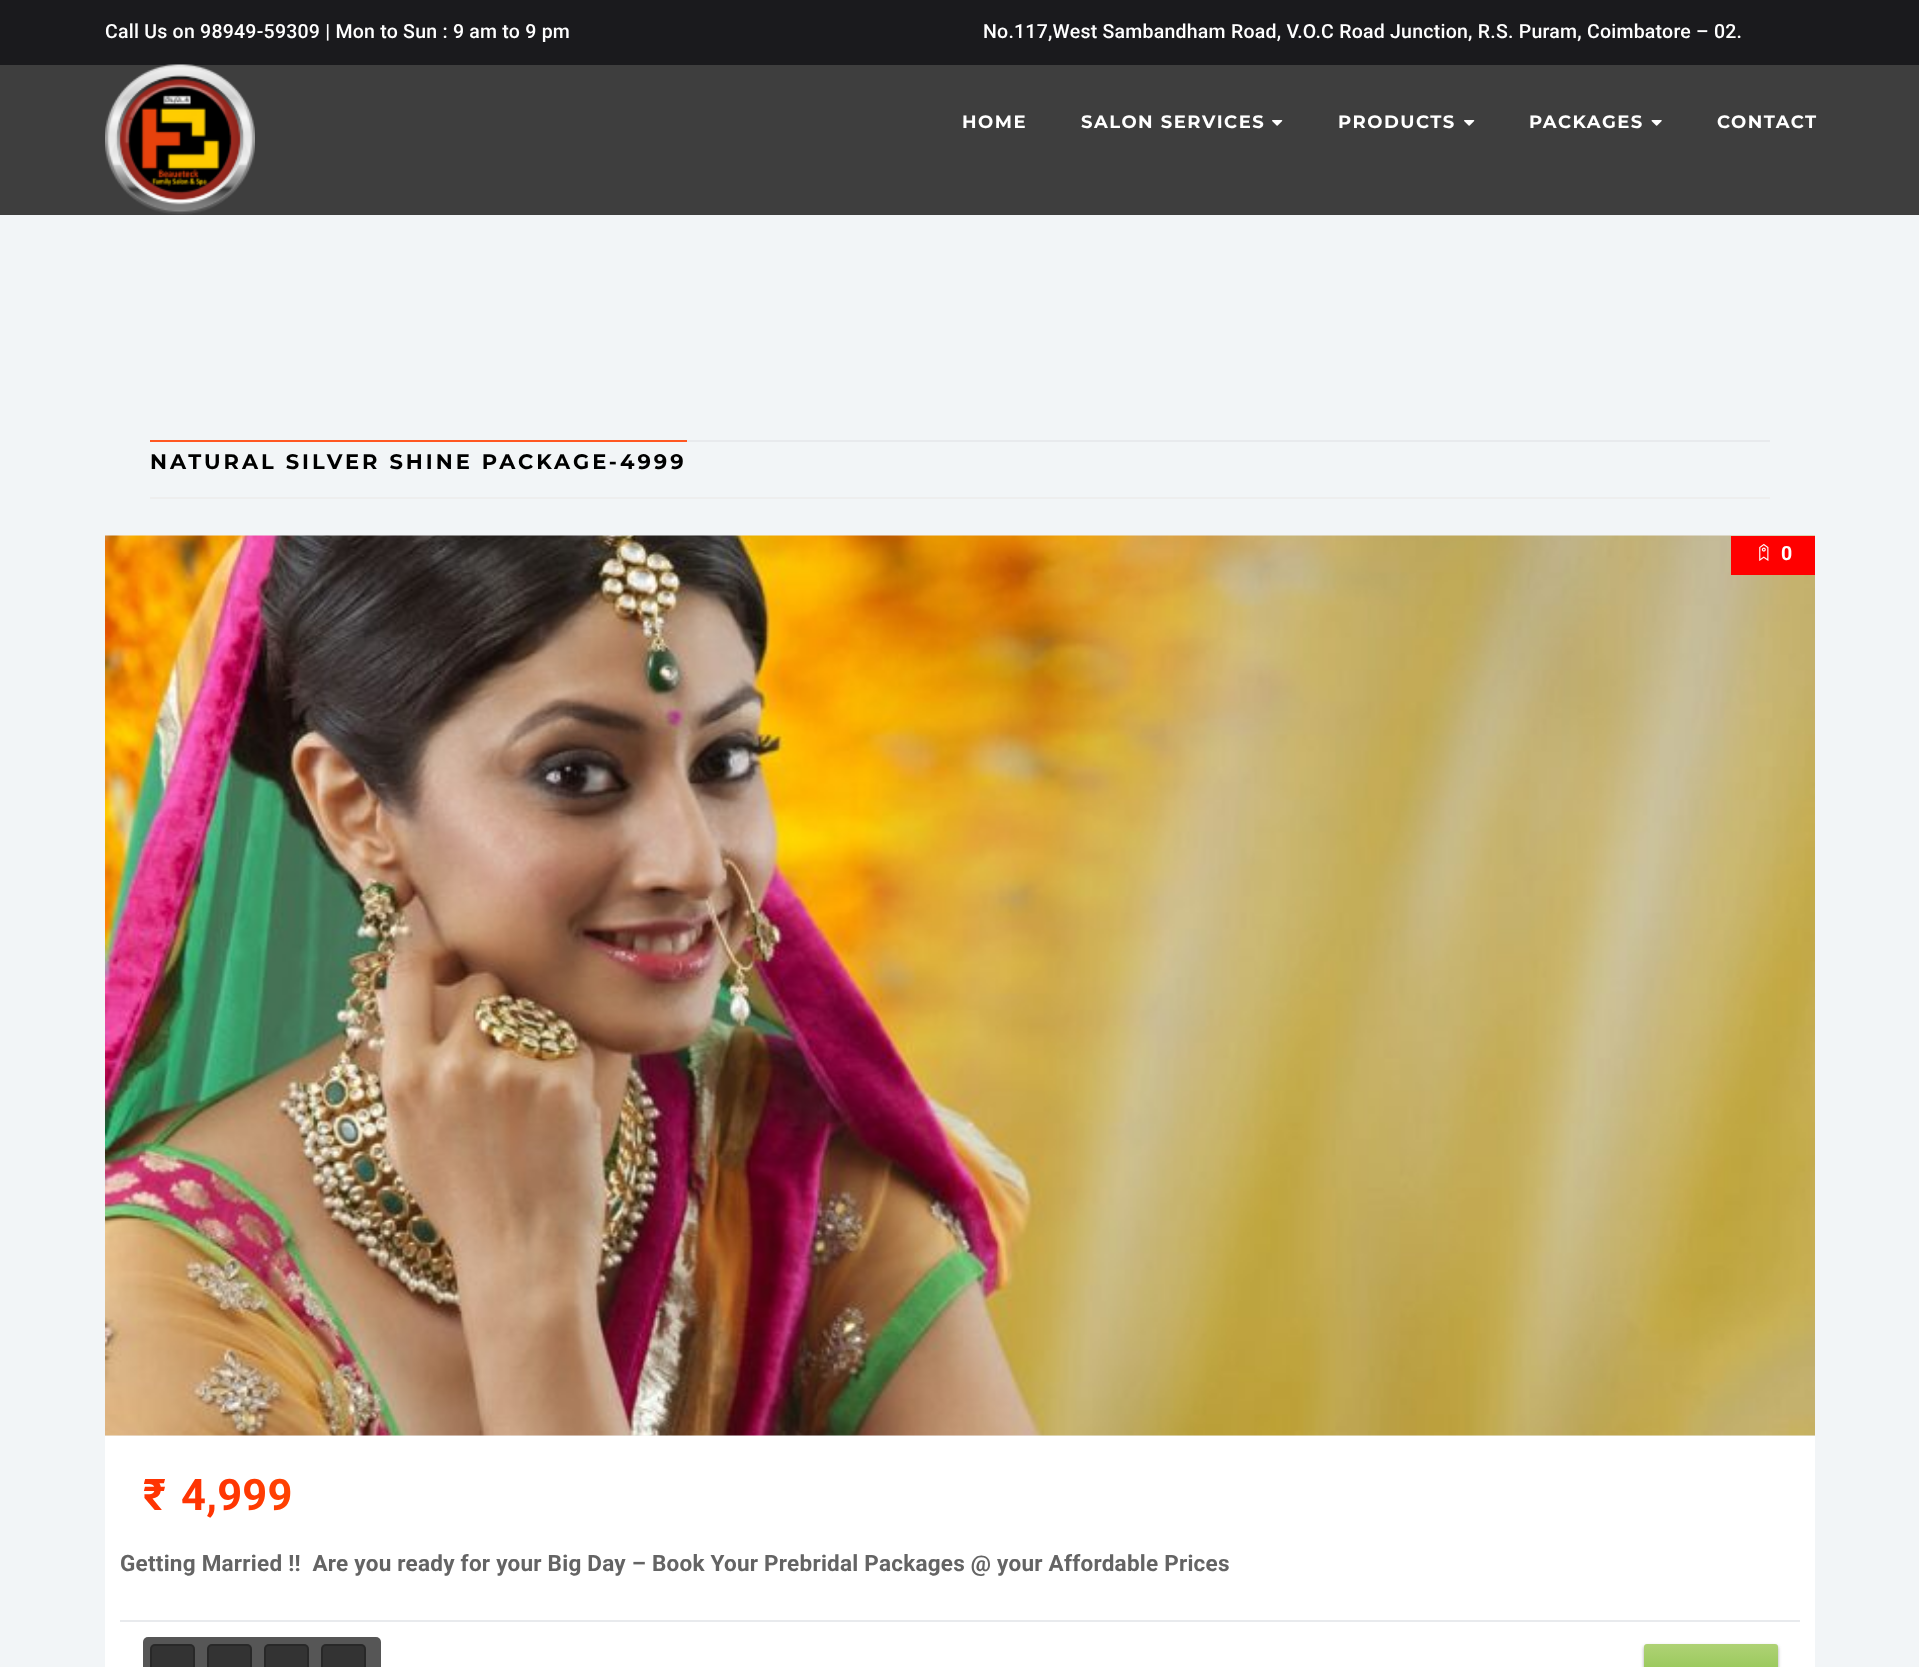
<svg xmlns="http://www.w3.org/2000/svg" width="1919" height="1667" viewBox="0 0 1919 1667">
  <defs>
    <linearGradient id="g1" gradientUnits="userSpaceOnUse" x1="1778" y1="1498" x2="143" y2="1499"><stop offset="0" stop-color="#ff3402"/><stop offset="0.54" stop-color="#ffc800"/><stop offset="0.95" stop-color="#ff3402"/></linearGradient>
    <filter id="blur1" x="-50%" y="-200%" width="200%" height="500%"><feGaussianBlur stdDeviation="1.5"/></filter>
    <filter id="blur2" x="-50%" y="-200%" width="200%" height="500%"><feGaussianBlur stdDeviation="2"/></filter>
    <linearGradient id="g2" gradientUnits="userSpaceOnUse" x1="1711" y1="1644" x2="1711" y2="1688"><stop offset="0" stop-color="#afd275"/><stop offset="1" stop-color="#8bc34a"/></linearGradient>
  </defs>
  <rect width="100%" height="100%" fill="#f2f5f7"/>
  <rect x="0" y="0" width="1919" height="65" fill="#1a1a1d"/>
  <text x="105" y="38" font-family="Roboto" font-size="19.5" font-weight="500" letter-spacing="0.24" fill="#ffffff">Call Us on 98949-59309 | Mon to Sun : 9 am to 9 pm</text>
  <text x="983" y="38" font-family="Roboto" font-size="19.5" font-weight="500" letter-spacing="0.24" fill="#ffffff">No.117,West Sambandham Road, V.O.C Road Junction, R.S. Puram, Coimbatore – 02.</text>
  <rect x="0" y="65" width="1919" height="150" fill="#3e3e3e"/>
  <image x="105" y="64" width="150" height="151" href="img1.png"/>
  <text x="962" y="128" font-family="Montserrat" font-size="18" font-weight="bold" letter-spacing="1.5" fill="#ffffff">HOME</text>
  <text x="1081" y="128" font-family="Montserrat" font-size="18" font-weight="bold" letter-spacing="1.5" fill="#ffffff">SALON SERVICES</text>
  <image x="1272" y="120" width="11" height="6" href="img2.png"/>
  <text x="1338" y="128" font-family="Montserrat" font-size="18" font-weight="bold" letter-spacing="1.5" fill="#ffffff">PRODUCTS</text>
  <image x="1464" y="120" width="11" height="6" href="img2.png"/>
  <text x="1529" y="128" font-family="Montserrat" font-size="18" font-weight="bold" letter-spacing="1.5" fill="#ffffff">PACKAGES</text>
  <image x="1651" y="120" width="11" height="6" href="img3.png"/>
  <text x="1717" y="128" font-family="Montserrat" font-size="18" font-weight="bold" letter-spacing="1.5" fill="#ffffff">CONTACT</text>
  <rect x="687" y="440" width="1083" height="2" fill="#e8eaed"/>
  <rect x="150" y="497" width="1620" height="2" fill="#eeeeee"/>
  <text x="150" y="469" font-family="Montserrat" font-size="21" font-weight="bold" letter-spacing="3" fill="#000000">NATURAL SILVER SHINE PACKAGE-4999</text>
  <rect x="150" y="440" width="537" height="2" fill="#ff5722"/>
  <image x="105" y="535" width="1710" height="901" href="img4.png"/>
  <rect x="1731" y="536" width="84" height="39" fill="#ff0000"/>
  <image x="1759" y="543" width="10" height="18" href="img5.png"/>
  <text x="1781" y="560" font-family="Roboto" font-size="19.5" font-weight="bold" letter-spacing="0.24" fill="#ffffff">0</text>
  <rect x="105" y="1436" width="1710" height="231" fill="#ffffff"/>
  <text x="143" y="1510" font-family="Roboto" font-size="43.5" font-weight="bold" letter-spacing="0.24" fill="url(#g1)">₹</text>
  <text x="181" y="1510" font-family="Roboto" font-size="43.5" font-weight="bold" letter-spacing="0.24" fill="url(#g1)">4,999</text>
  <text x="120" y="1571" font-family="Roboto" font-size="22.5" font-weight="bold" letter-spacing="0.24" fill="#646464" xml:space="preserve">Getting Married !!  Are you ready for your Big Day – Book Your Prebridal Packages @ your Affordable Prices</text>
  <rect x="120" y="1620" width="1680" height="2" fill="#e8eaed"/>
  <rect x="143" y="1637" width="238" height="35" rx="5" fill="#565656"/>
  <rect x="150" y="1644" width="45" height="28" rx="5" fill="#333333"/>
  <rect x="151" y="1645" width="43" height="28" rx="4" fill="none" stroke="#000000" stroke-opacity="0.2" stroke-width="2"/>
  <rect x="207" y="1644" width="45" height="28" rx="5" fill="#333333"/>
  <rect x="208" y="1645" width="43" height="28" rx="4" fill="none" stroke="#000000" stroke-opacity="0.2" stroke-width="2"/>
  <rect x="264" y="1644" width="45" height="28" rx="5" fill="#333333"/>
  <rect x="265" y="1645" width="43" height="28" rx="4" fill="none" stroke="#000000" stroke-opacity="0.2" stroke-width="2"/>
  <rect x="321" y="1644" width="45" height="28" rx="5" fill="#333333"/>
  <rect x="322" y="1645" width="43" height="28" rx="4" fill="none" stroke="#000000" stroke-opacity="0.2" stroke-width="2"/>
  <rect x="1644" y="1646" width="134" height="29" rx="3" fill="#000000" fill-opacity="0.24" filter="url(#blur1)"/>
  <rect x="1644" y="1646" width="134" height="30" rx="3" fill="#000000" fill-opacity="0.12" filter="url(#blur2)"/>
  <rect x="1644" y="1644" width="134" height="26" rx="3" fill="url(#g2)"/>
</svg>
